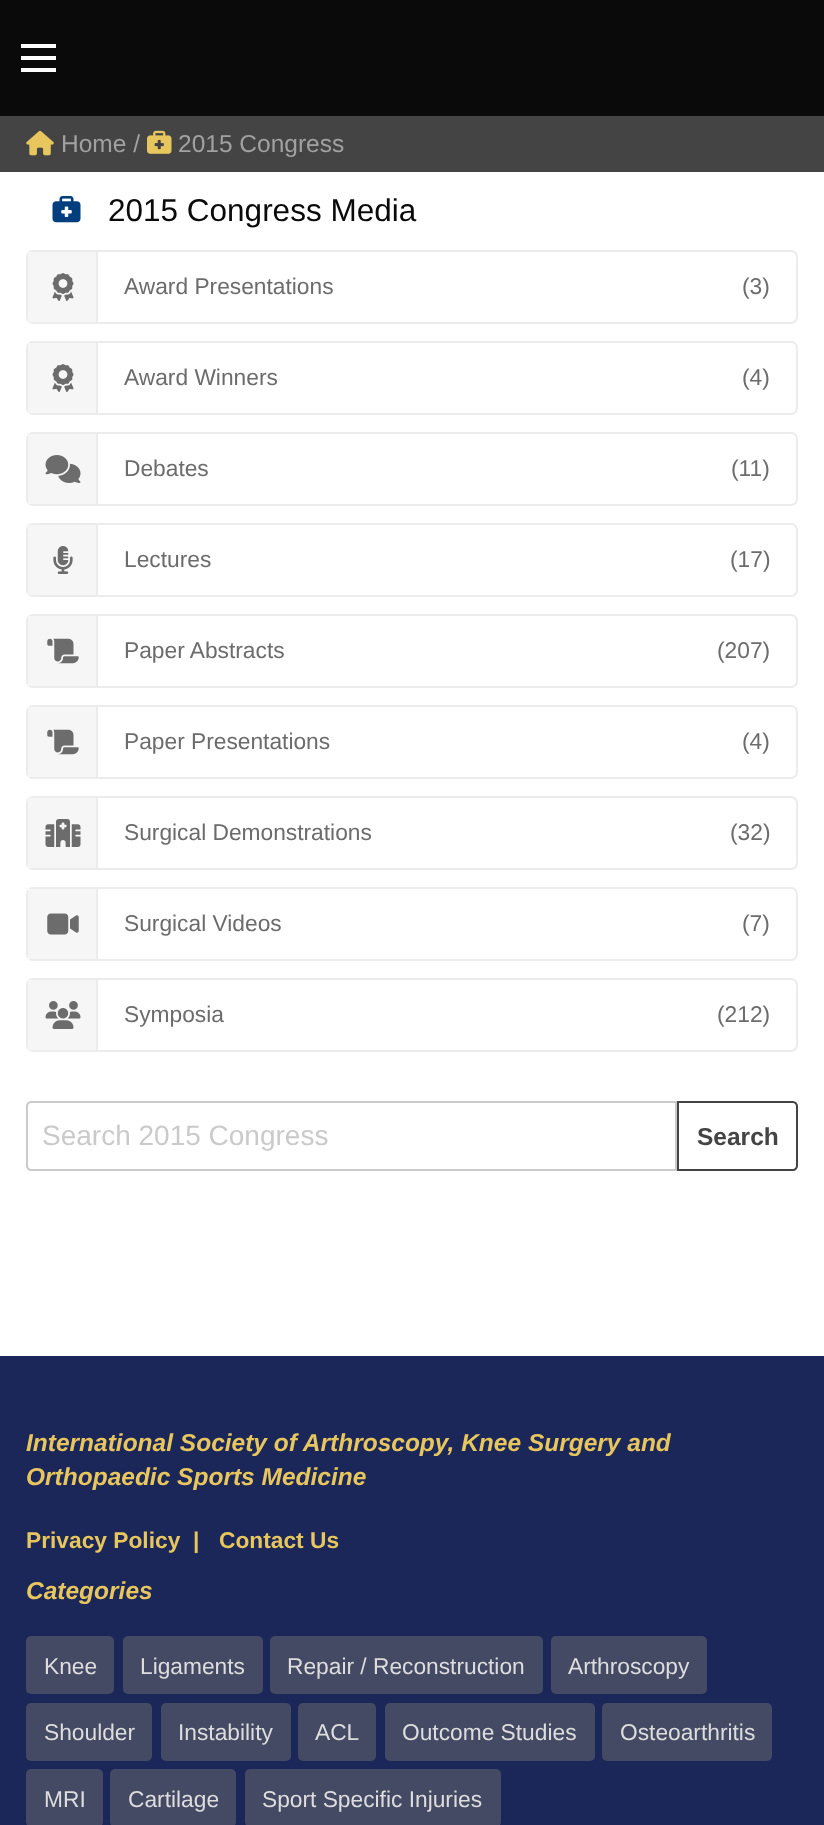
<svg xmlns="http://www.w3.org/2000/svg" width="824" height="1825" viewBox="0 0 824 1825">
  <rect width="100%" height="100%" fill="#ffffff"/>
  <rect x="0" y="0" width="824" height="116" fill="#0a0a0a"/>
  <rect x="21" y="68" width="35" height="4" fill="#fefefe"/>
  <rect x="21" y="56" width="35" height="4" fill="#fefefe"/>
  <rect x="21" y="44" width="35" height="4" fill="#fefefe"/>
  <rect x="0" y="116" width="824" height="56" fill="#444444"/>
  <image x="26" y="130" width="28" height="26" href="img1.png"/>
  <text x="61" y="152" font-family="Liberation Sans" font-size="24.5" fill="#a1a1a2">Home /</text>
  <image x="147" y="130" width="25" height="24" href="img2.png"/>
  <text x="178" y="152" font-family="Liberation Sans" font-size="24.5" fill="#a1a1a2">2015 Congress</text>
  <image x="52" y="196" width="29" height="27" href="img3.png"/>
  <text x="108" y="221" font-family="Liberation Sans" font-size="31.5" fill="#0a0a0a">2015 Congress Media</text>
  <rect x="27" y="251" width="770" height="72" rx="6" fill="none" stroke="#ececec" stroke-width="2"/>
  <rect x="28" y="252" width="68" height="70" fill="#f6f6f6"/>
  <rect x="96" y="252" width="2" height="70" fill="#ececec"/>
  <image x="52" y="273" width="22" height="28" href="img4.png"/>
  <text x="124" y="294" font-family="Liberation Sans" font-size="22.75" fill="#6c6c6c">Award Presentations</text>
  <text x="742" y="294" font-family="Liberation Sans" font-size="22.75" fill="#6c6c6c">(3)</text>
  <rect x="27" y="342" width="770" height="72" rx="6" fill="none" stroke="#ececec" stroke-width="2"/>
  <rect x="28" y="343" width="68" height="70" fill="#f6f6f6"/>
  <rect x="96" y="343" width="2" height="70" fill="#ececec"/>
  <image x="52" y="364" width="22" height="28" href="img4.png"/>
  <text x="124" y="385" font-family="Liberation Sans" font-size="22.75" fill="#6c6c6c">Award Winners</text>
  <text x="742" y="385" font-family="Liberation Sans" font-size="22.75" fill="#6c6c6c">(4)</text>
  <rect x="27" y="433" width="770" height="72" rx="6" fill="none" stroke="#ececec" stroke-width="2"/>
  <rect x="28" y="434" width="68" height="70" fill="#f6f6f6"/>
  <rect x="96" y="434" width="2" height="70" fill="#ececec"/>
  <image x="45" y="455" width="36" height="28" href="img5.png"/>
  <text x="124" y="476" font-family="Liberation Sans" font-size="22.75" fill="#6c6c6c">Debates</text>
  <text x="731" y="476" font-family="Liberation Sans" font-size="22.75" fill="#6c6c6c">(11)</text>
  <rect x="27" y="524" width="770" height="72" rx="6" fill="none" stroke="#ececec" stroke-width="2"/>
  <rect x="28" y="525" width="68" height="70" fill="#f6f6f6"/>
  <rect x="96" y="525" width="2" height="70" fill="#ececec"/>
  <image x="53" y="546" width="20" height="28" href="img6.png"/>
  <text x="124" y="567" font-family="Liberation Sans" font-size="22.75" fill="#6c6c6c">Lectures</text>
  <text x="730" y="567" font-family="Liberation Sans" font-size="22.75" fill="#6c6c6c">(17)</text>
  <rect x="27" y="615" width="770" height="72" rx="6" fill="none" stroke="#ececec" stroke-width="2"/>
  <rect x="28" y="616" width="68" height="70" fill="#f6f6f6"/>
  <rect x="96" y="616" width="2" height="70" fill="#ececec"/>
  <image x="47" y="638" width="32" height="26" href="img7.png"/>
  <text x="124" y="658" font-family="Liberation Sans" font-size="22.75" fill="#6c6c6c">Paper Abstracts</text>
  <text x="717" y="658" font-family="Liberation Sans" font-size="22.75" fill="#6c6c6c">(207)</text>
  <rect x="27" y="706" width="770" height="72" rx="6" fill="none" stroke="#ececec" stroke-width="2"/>
  <rect x="28" y="707" width="68" height="70" fill="#f6f6f6"/>
  <rect x="96" y="707" width="2" height="70" fill="#ececec"/>
  <image x="47" y="729" width="32" height="26" href="img7.png"/>
  <text x="124" y="749" font-family="Liberation Sans" font-size="22.75" fill="#6c6c6c">Paper Presentations</text>
  <text x="742" y="749" font-family="Liberation Sans" font-size="22.75" fill="#6c6c6c">(4)</text>
  <rect x="27" y="797" width="770" height="72" rx="6" fill="none" stroke="#ececec" stroke-width="2"/>
  <rect x="28" y="798" width="68" height="70" fill="#f6f6f6"/>
  <rect x="96" y="798" width="2" height="70" fill="#ececec"/>
  <image x="45" y="819" width="36" height="28" href="img8.png"/>
  <text x="124" y="840" font-family="Liberation Sans" font-size="22.75" fill="#6c6c6c">Surgical Demonstrations</text>
  <text x="730" y="840" font-family="Liberation Sans" font-size="22.75" fill="#6c6c6c">(32)</text>
  <rect x="27" y="888" width="770" height="72" rx="6" fill="none" stroke="#ececec" stroke-width="2"/>
  <rect x="28" y="889" width="68" height="70" fill="#f6f6f6"/>
  <rect x="96" y="889" width="2" height="70" fill="#ececec"/>
  <image x="47" y="913" width="32" height="22" href="img9.png"/>
  <text x="124" y="931" font-family="Liberation Sans" font-size="22.75" fill="#6c6c6c">Surgical Videos</text>
  <text x="742" y="931" font-family="Liberation Sans" font-size="22.75" fill="#6c6c6c">(7)</text>
  <rect x="27" y="979" width="770" height="72" rx="6" fill="none" stroke="#ececec" stroke-width="2"/>
  <rect x="28" y="980" width="68" height="70" fill="#f6f6f6"/>
  <rect x="96" y="980" width="2" height="70" fill="#ececec"/>
  <image x="45" y="1001" width="36" height="28" href="img10.png"/>
  <text x="124" y="1022" font-family="Liberation Sans" font-size="22.75" fill="#6c6c6c">Symposia</text>
  <text x="717" y="1022" font-family="Liberation Sans" font-size="22.75" fill="#6c6c6c">(212)</text>
  <path d="M31 1102H676V1170H31C29 1170 27 1168 27 1166V1106C27 1104 29 1102 31 1102Z" fill="none" stroke="#cacaca" stroke-width="2"/>
  <text x="42" y="1145" font-family="Liberation Sans" font-size="28" fill="#cacaca">Search 2015 Congress</text>
  <path d="M678 1102H793C795 1102 797 1104 797 1106V1166C797 1168 795 1170 793 1170H678Z" fill="none" stroke="#444444" stroke-width="2"/>
  <text x="697" y="1145" font-family="Liberation Sans" font-size="24.5" font-weight="bold" fill="#444444">Search</text>
  <rect x="0" y="1356" width="824" height="469" fill="#1c2759"/>
  <text x="26" y="1451" font-family="Liberation Sans" font-size="24.5" font-weight="bold" font-style="italic" fill="#e8c65e">International Society of Arthroscopy, Knee Surgery and</text>
  <text x="26" y="1485" font-family="Liberation Sans" font-size="24.5" font-weight="bold" font-style="italic" fill="#e8c65e">Orthopaedic Sports Medicine</text>
  <text x="26" y="1548" font-family="Liberation Sans" font-size="22.75" font-weight="bold" fill="#e8c65e">Privacy Policy</text>
  <text x="193" y="1548" font-family="Liberation Sans" font-size="22.75" font-weight="bold" fill="#e8c65e">|</text>
  <text x="219" y="1548" font-family="Liberation Sans" font-size="22.75" font-weight="bold" fill="#e8c65e">Contact Us</text>
  <text x="26" y="1599" font-family="Liberation Sans" font-size="24.5" font-weight="bold" font-style="italic" fill="#e8c65e">Categories</text>
  <rect x="26" y="1636" width="88" height="58" rx="5" fill="#444a63"/>
  <text x="44" y="1674" font-family="Liberation Sans" font-size="22.75" fill="#dddddd">Knee</text>
  <rect x="123" y="1636" width="140" height="58" rx="5" fill="#444a63"/>
  <text x="140" y="1674" font-family="Liberation Sans" font-size="22.75" fill="#dddddd">Ligaments</text>
  <rect x="270" y="1636" width="273" height="58" rx="5" fill="#444a63"/>
  <text x="287" y="1674" font-family="Liberation Sans" font-size="22.75" fill="#dddddd">Repair / Reconstruction</text>
  <rect x="551" y="1636" width="156" height="58" rx="5" fill="#444a63"/>
  <text x="568" y="1674" font-family="Liberation Sans" font-size="22.75" fill="#dddddd">Arthroscopy</text>
  <rect x="26" y="1703" width="126" height="58" rx="5" fill="#444a63"/>
  <text x="44" y="1740" font-family="Liberation Sans" font-size="22.75" fill="#dddddd">Shoulder</text>
  <rect x="161" y="1703" width="130" height="58" rx="5" fill="#444a63"/>
  <text x="178" y="1740" font-family="Liberation Sans" font-size="22.75" fill="#dddddd">Instability</text>
  <rect x="298" y="1703" width="78" height="58" rx="5" fill="#444a63"/>
  <text x="315" y="1740" font-family="Liberation Sans" font-size="22.75" fill="#dddddd">ACL</text>
  <rect x="385" y="1703" width="210" height="58" rx="5" fill="#444a63"/>
  <text x="402" y="1740" font-family="Liberation Sans" font-size="22.75" fill="#dddddd">Outcome Studies</text>
  <rect x="602" y="1703" width="170" height="58" rx="5" fill="#444a63"/>
  <text x="620" y="1740" font-family="Liberation Sans" font-size="22.75" fill="#dddddd">Osteoarthritis</text>
  <rect x="26" y="1769" width="77" height="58" rx="5" fill="#444a63"/>
  <text x="44" y="1807" font-family="Liberation Sans" font-size="22.75" fill="#dddddd">MRI</text>
  <rect x="110" y="1769" width="126" height="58" rx="5" fill="#444a63"/>
  <text x="128" y="1807" font-family="Liberation Sans" font-size="22.75" fill="#dddddd">Cartilage</text>
  <rect x="245" y="1769" width="256" height="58" rx="5" fill="#444a63"/>
  <text x="262" y="1807" font-family="Liberation Sans" font-size="22.75" fill="#dddddd">Sport Specific Injuries</text>
</svg>
